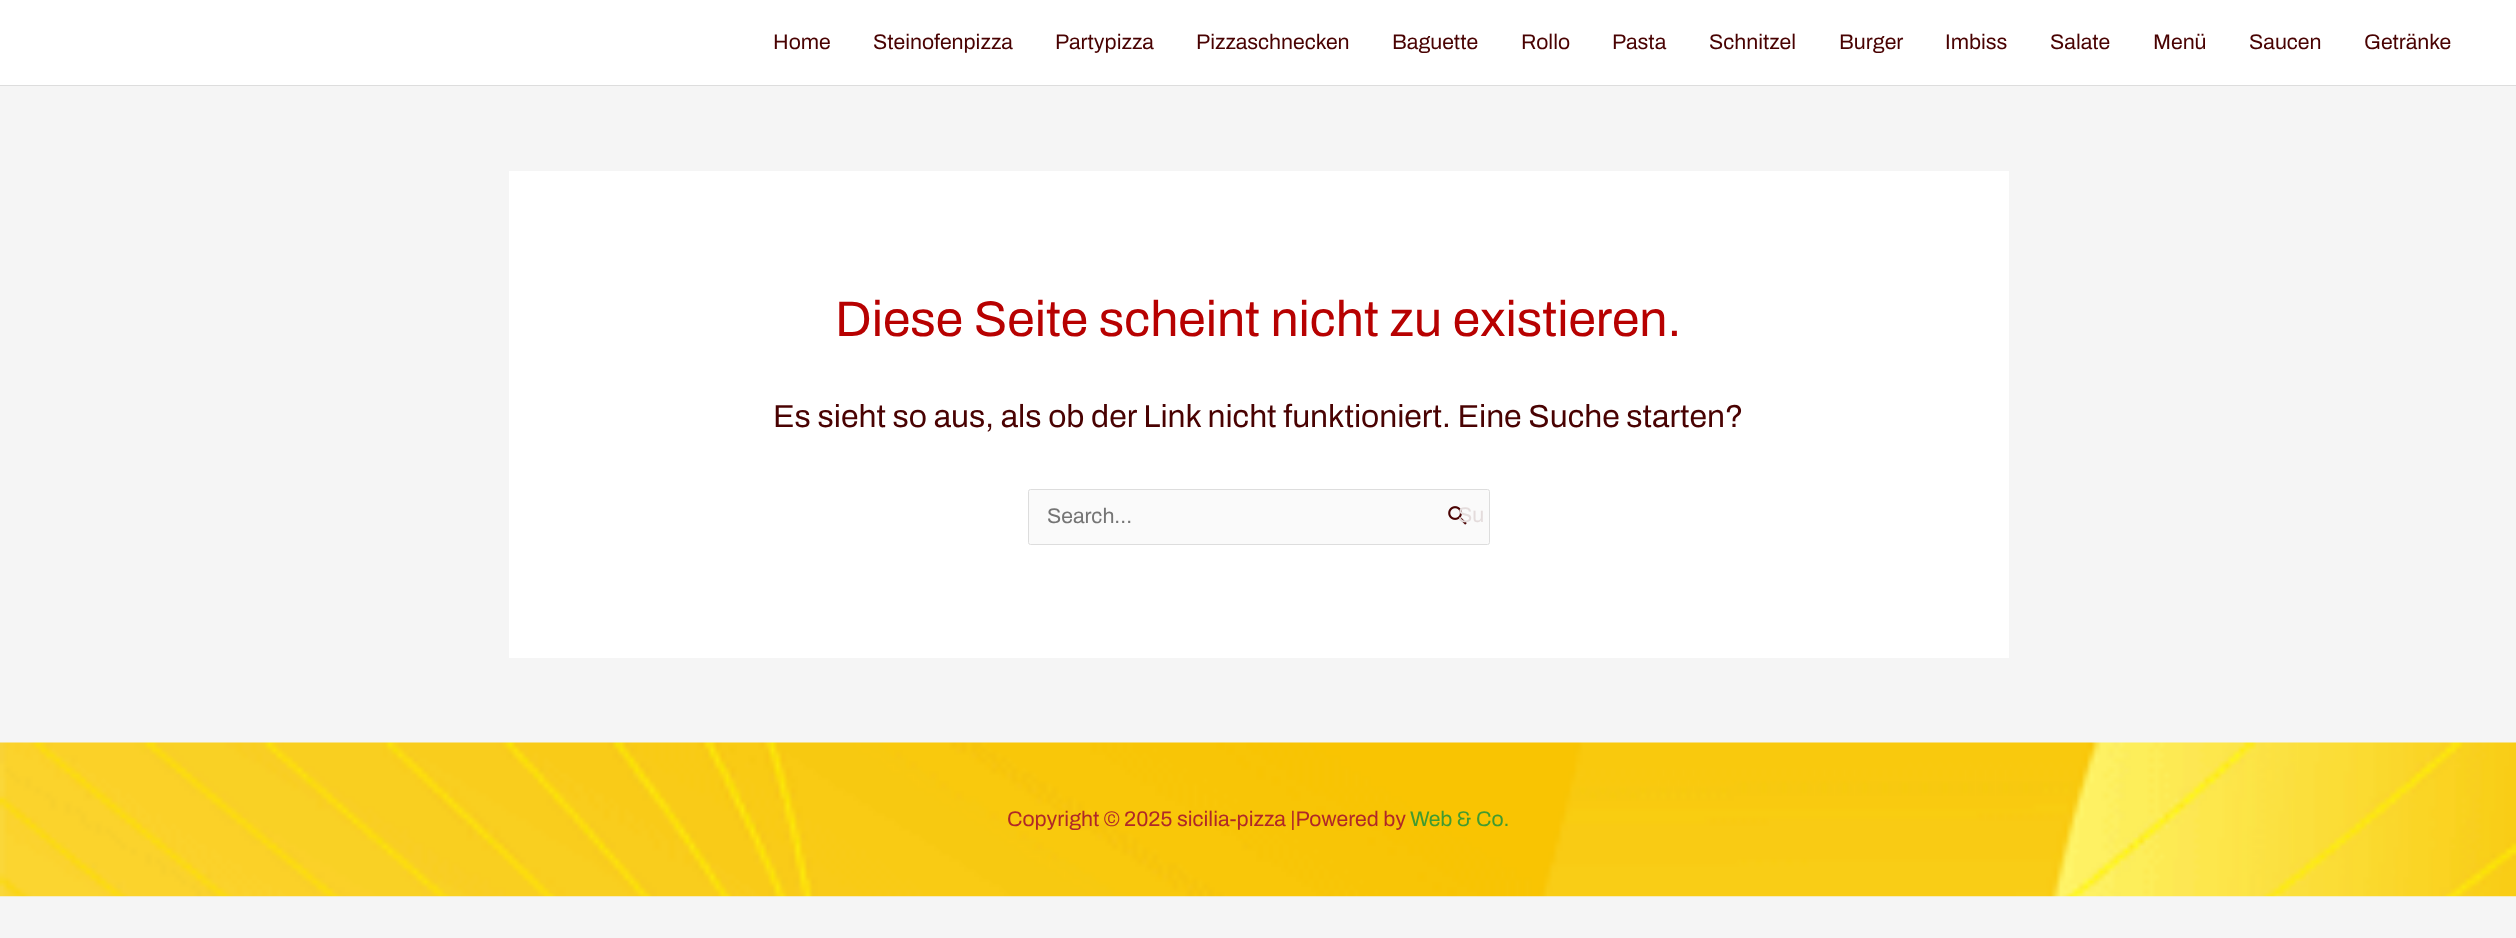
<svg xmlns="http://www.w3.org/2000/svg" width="2516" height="938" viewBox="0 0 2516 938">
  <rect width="100%" height="100%" fill="#f5f5f5"/>
  <rect x="0" y="0" width="2516" height="85" fill="#ffffff"/>
  <rect x="0" y="85" width="2516" height="1" fill="#dddddd"/>
  <text x="773" y="49" font-family="Archivo" font-size="21.25" font-weight="600" fill="#490202">Home</text>
  <text x="873" y="49" font-family="Archivo" font-size="21.25" font-weight="600" fill="#490202">Steinofenpizza</text>
  <text x="1055" y="49" font-family="Archivo" font-size="21.25" font-weight="600" fill="#490202">Partypizza</text>
  <text x="1196" y="49" font-family="Archivo" font-size="21.25" font-weight="600" fill="#490202">Pizzaschnecken</text>
  <text x="1392" y="49" font-family="Archivo" font-size="21.25" font-weight="600" fill="#490202">Baguette</text>
  <text x="1521" y="49" font-family="Archivo" font-size="21.25" font-weight="600" fill="#490202">Rollo</text>
  <text x="1612" y="49" font-family="Archivo" font-size="21.25" font-weight="600" fill="#490202">Pasta</text>
  <text x="1709" y="49" font-family="Archivo" font-size="21.25" font-weight="600" fill="#490202">Schnitzel</text>
  <text x="1839" y="49" font-family="Archivo" font-size="21.25" font-weight="600" fill="#490202">Burger</text>
  <text x="1945" y="49" font-family="Archivo" font-size="21.25" font-weight="600" fill="#490202">Imbiss</text>
  <text x="2050" y="49" font-family="Archivo" font-size="21.25" font-weight="600" fill="#490202">Salate</text>
  <text x="2153" y="49" font-family="Archivo" font-size="21.25" font-weight="600" fill="#490202">Menü</text>
  <text x="2249" y="49" font-family="Archivo" font-size="21.25" font-weight="600" fill="#490202">Saucen</text>
  <text x="2364" y="49" font-family="Archivo" font-size="21.25" font-weight="600" fill="#490202">Getränke</text>
  <rect x="509" y="171" width="1500" height="487" fill="#ffffff"/>
  <text x="835" y="336" font-family="Archivo" font-size="50" font-weight="600" fill="#b70101">Diese Seite scheint nicht zu existieren.</text>
  <text x="773" y="427" font-family="Archivo" font-size="31.9" font-weight="600" fill="#490202">Es sieht so aus, als ob der Link nicht funktioniert. Eine Suche starten?</text>
  <rect x="1028.5" y="489.5" width="461" height="55" rx="2" fill="#fafafa" stroke="#dddddd"/>
  <text x="1047" y="523" font-family="Archivo" font-size="21.25" font-weight="600" fill="#757575">Search...</text>
  <image x="1448" y="506" width="19" height="19" href="img1.png"/>
  <text x="1458" y="522" font-family="Archivo" font-size="21.25" font-weight="600" fill="#e4dcdc">Su</text>
  <image x="0" y="742" width="2516" height="155" href="img2.png"/>
  <text x="1007" y="826" font-family="Archivo" font-size="21.25" font-weight="600" fill="#af2828">Copyright © 2025 sicilia-pizza |Powered by</text>
  <text x="1410" y="826" font-family="Archivo" font-size="21.25" font-weight="600" fill="#409b30">Web &amp; Co.</text>
</svg>
